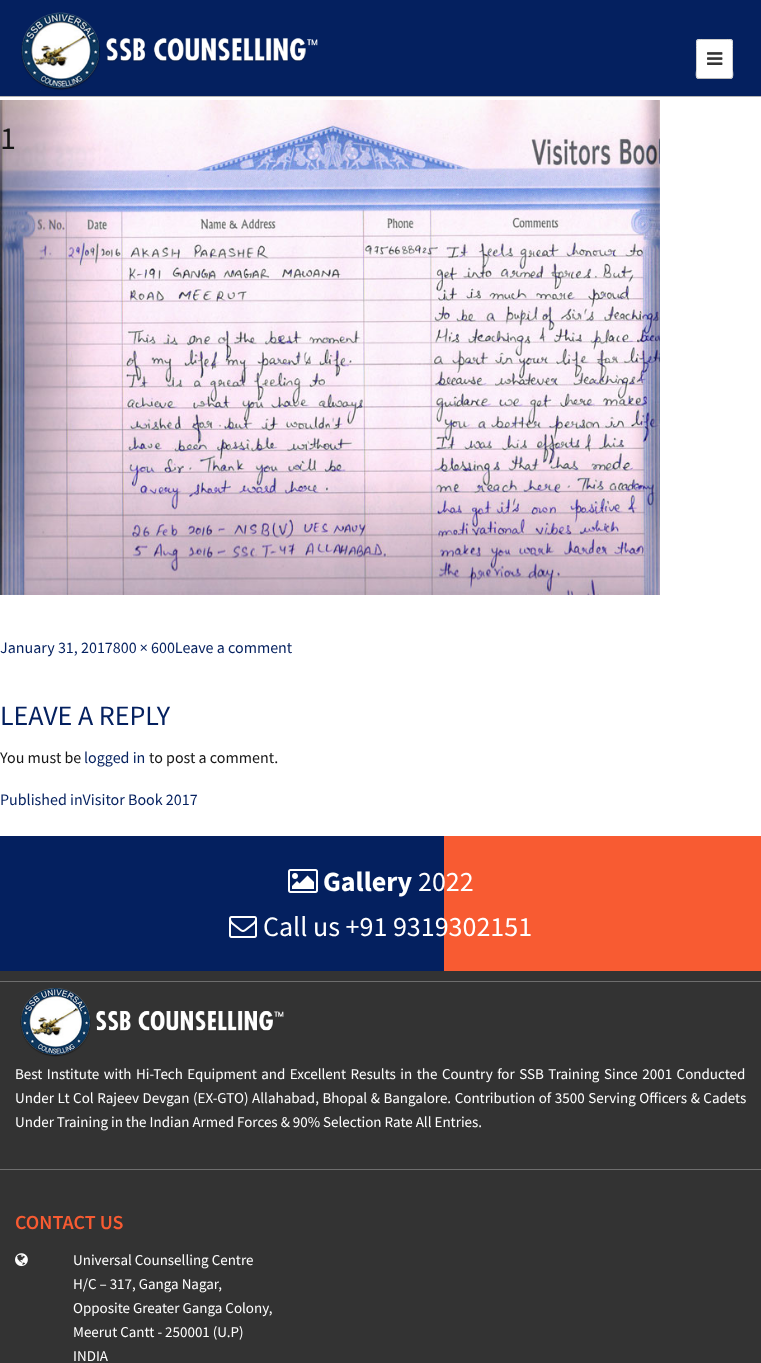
<svg xmlns="http://www.w3.org/2000/svg" width="761" height="1363" viewBox="0 0 761 1363">
  <rect width="100%" height="100%" fill="#ffffff"/>
  <rect x="0" y="96" width="761" height="1" fill="#b3b3b3"/>
  <rect x="0" y="0" width="761" height="96" fill="#04205f"/>
  <image x="21" y="12" width="297" height="79" href="img1.png"/>
  <rect x="696" y="39" width="37" height="40" rx="3" fill="#ffffff"/>
  <path d="M732 78C731.5 78 730.5 78.5 730 78.5H699C698.5 78.5 697.5 78 697 78" fill="none" stroke="#bbbbbb"/>
  <path d="M697 78C695.5 76 696.5 71 696.5 70.5V47.5C696.5 39 695.5 39.5 704 39.5H725C733.5 39.5 732.5 39 732.5 47.5V70.5C732.5 71 733.5 76 732 78" fill="none" stroke="#cccccc"/>
  <image x="707" y="52" width="16" height="13" href="img2.png"/>
  <image x="0" y="100" width="660" height="495" href="img3.png"/>
  <text x="0" y="149" font-family="Source Sans Pro" font-size="32" fill="#161616">1</text>
  <text x="0" y="653" font-family="Source Sans Pro" font-size="16" fill="#04205f">January 31, 2017800 × 600Leave a comment</text>
  <text x="0" y="725" font-family="Source Sans Pro" font-size="28" fill="#04205f">LEAVE A REPLY</text>
  <text x="0" y="763" font-family="Source Sans Pro" font-size="16" fill="#161616">You must be</text>
  <text x="84" y="763" font-family="Source Sans Pro" font-size="16" fill="#04205f">logged in</text>
  <text x="149" y="763" font-family="Source Sans Pro" font-size="16" fill="#161616">to post a comment.</text>
  <text x="0" y="805" font-family="Source Sans Pro" font-size="16" fill="#04205f">Published inVisitor Book 2017</text>
  <rect x="0" y="836" width="444" height="135" fill="#04205f"/>
  <image x="444" y="836" width="317" height="135" href="img4.png"/>
  <image x="288" y="869" width="30" height="24" href="img5.png"/>
  <text x="323" y="891" font-family="Source Sans Pro" font-size="28" font-weight="bold" fill="#ffffff">Gallery</text>
  <text x="418" y="891" font-family="Source Sans Pro" font-size="28" fill="#ffffff">2022</text>
  <image x="229" y="916" width="28" height="22" href="img6.png"/>
  <text x="263" y="936" font-family="Source Sans Pro" font-size="28" fill="#ffffff">Call us +91 9319302151</text>
  <rect x="0" y="971" width="761" height="392" fill="#333333"/>
  <rect x="0" y="981" width="761" height="1" fill="#6e6e6e"/>
  <image x="20" y="988" width="264" height="69" href="img7.png"/>
  <text x="15" y="1079" word-spacing="1.5" font-family="Source Sans Pro" font-size="15" fill="#ffffff">Best Institute with Hi-Tech Equipment and Excellent Results in the Country for SSB Training Since 2001 Conducted</text>
  <text x="15" y="1103" word-spacing="0.6" font-family="Source Sans Pro" font-size="15" fill="#ffffff">Under Lt Col Rajeev Devgan (EX-GTO) Allahabad, Bhopal &amp; Bangalore. Contribution of 3500 Serving Officers &amp; Cadets</text>
  <text x="15" y="1127" font-family="Source Sans Pro" font-size="15" fill="#ffffff">Under Training in the Indian Armed Forces &amp; 90% Selection Rate All Entries.</text>
  <rect x="0" y="1169" width="761" height="1" fill="#6e6e6e"/>
  <text x="15" y="1229" font-family="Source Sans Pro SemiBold" font-size="20" font-weight="600" fill="#f85b32">CONTACT US</text>
  <image x="15" y="1253" width="13" height="14" href="img8.png"/>
  <text x="73" y="1265" font-family="Source Sans Pro" font-size="15" fill="#ffffff">Universal Counselling Centre</text>
  <text x="73" y="1289" font-family="Source Sans Pro" font-size="15" fill="#ffffff">H/C – 317, Ganga Nagar,</text>
  <text x="73" y="1313" font-family="Source Sans Pro" font-size="15" fill="#ffffff">Opposite Greater Ganga Colony,</text>
  <text x="73" y="1337" font-family="Source Sans Pro" font-size="15" fill="#ffffff">Meerut Cantt - 250001 (U.P)</text>
  <text x="73" y="1361" font-family="Source Sans Pro" font-size="15" fill="#ffffff">INDIA</text>
</svg>
